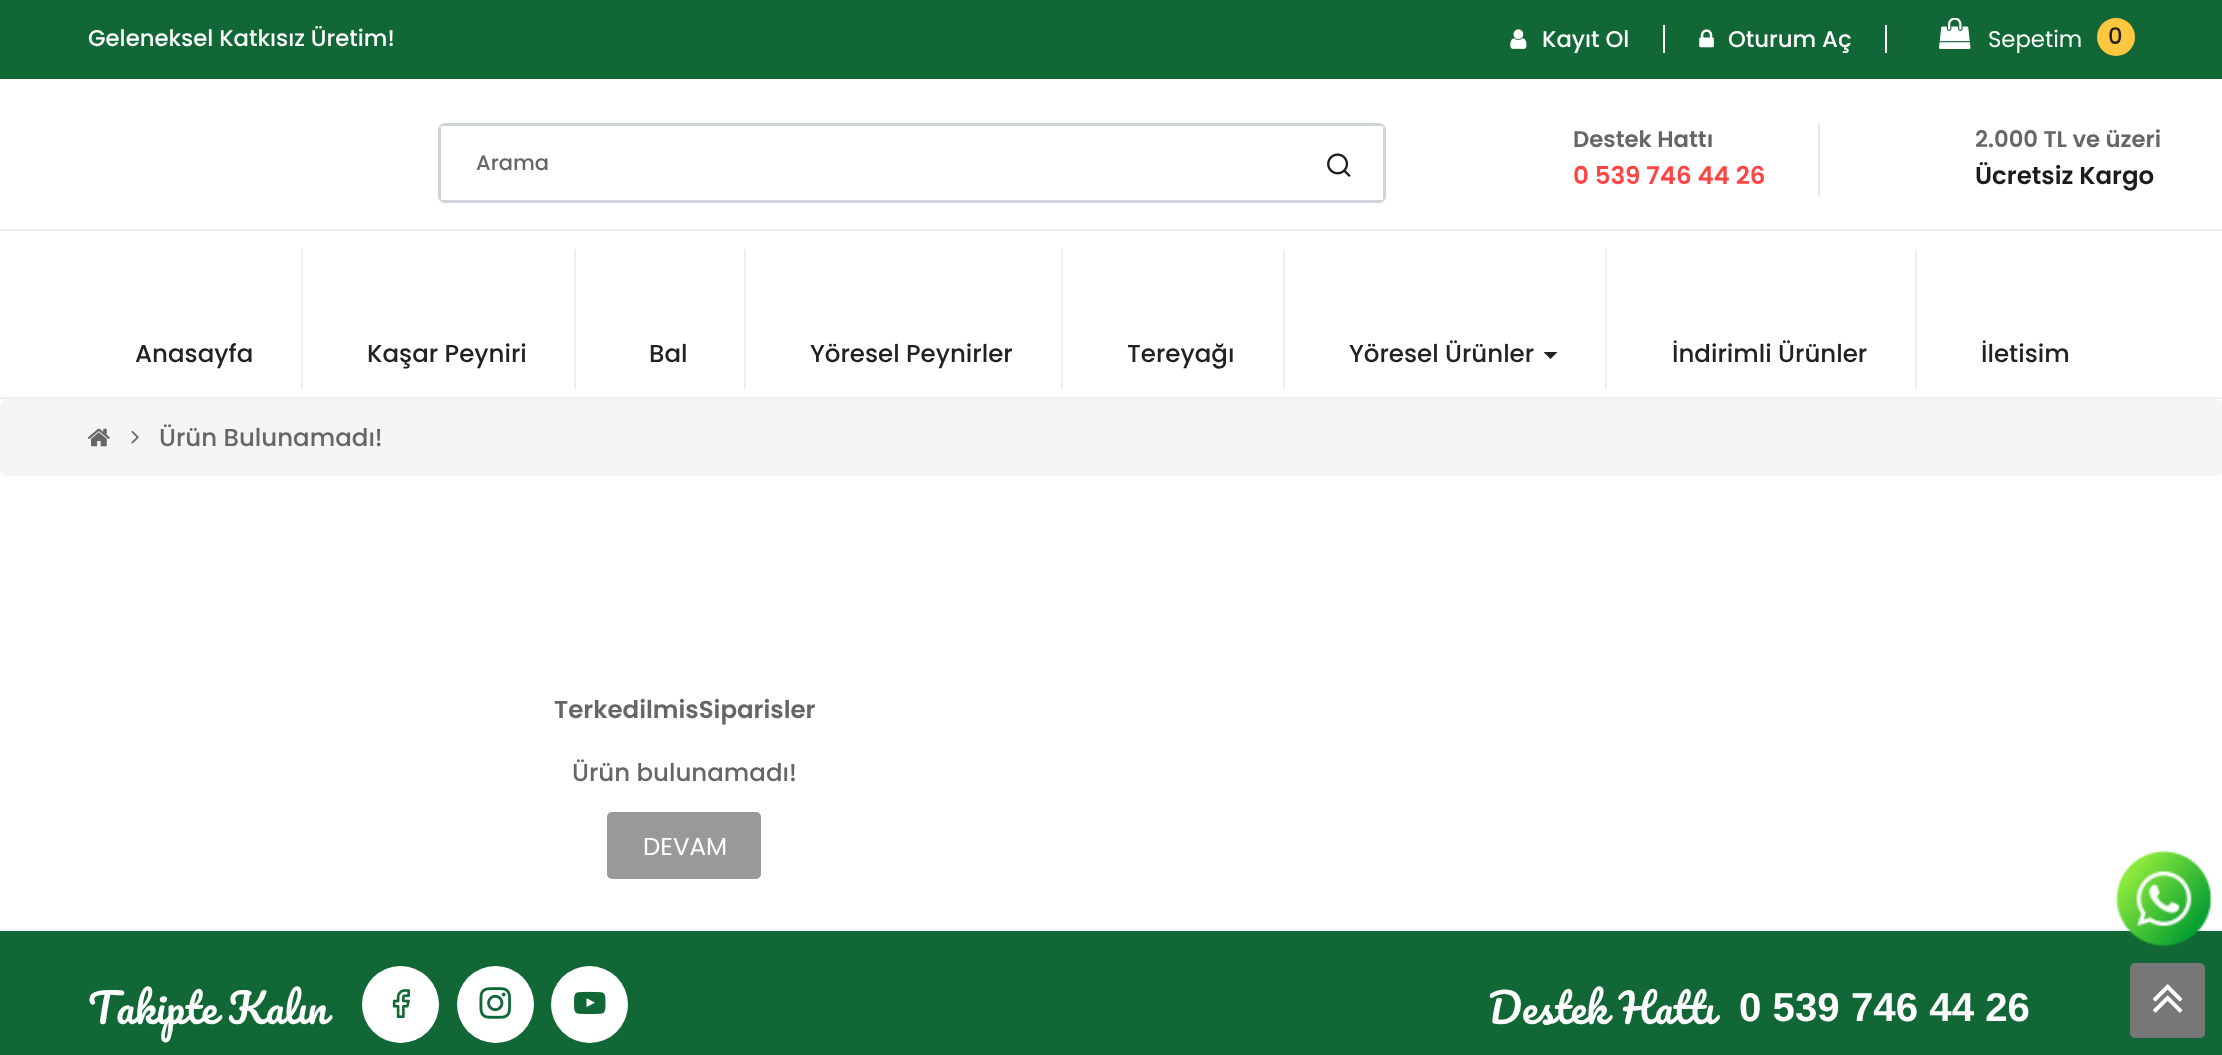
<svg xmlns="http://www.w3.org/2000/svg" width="2222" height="1055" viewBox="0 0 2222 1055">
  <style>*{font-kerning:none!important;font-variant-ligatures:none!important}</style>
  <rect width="100%" height="100%" fill="#ffffff"/>
  <rect x="0" y="0" width="2222" height="79" fill="#116735"/>
  <text x="88" y="46" font-family="Poppins" font-size="22.75" font-weight="500" fill="#ffffff">Geleneksel Katkısız Üretim!</text>
  <image x="1510" y="29" width="17" height="20" href="img1.png"/>
  <text x="1542" y="47" font-family="Poppins" font-size="22.75" font-weight="500" fill="#ffffff">Kayıt Ol</text>
  <rect x="1663" y="25" width="2" height="28" fill="#ffffff"/>
  <image x="1699" y="29" width="15" height="19" href="img2.png"/>
  <text x="1728" y="47" font-family="Poppins" font-size="22.75" font-weight="500" fill="#ffffff">Oturum Aç</text>
  <rect x="1885" y="25" width="2" height="28" fill="#ffffff"/>
  <image x="1939" y="18" width="32" height="31" href="img3.png"/>
  <text x="1988" y="47" font-family="Poppins" font-size="22.75" fill="#ffffff">Sepetim</text>
  <circle cx="2116" cy="37" r="19" fill="#ffc73e"/>
  <text x="2108" y="44" font-family="Poppins" font-size="22.75" font-weight="500" fill="#222222">0</text>
  <rect x="440" y="125" width="944" height="76" rx="5" fill="none" stroke="#ced4da" stroke-width="4"/>
  <rect x="441" y="126" width="942" height="74" fill="#ffffff"/>
  <text x="476" y="170" font-family="Poppins" font-size="21" font-weight="500" fill="#666666">Arama</text>
  <image x="1327" y="153" width="24" height="24" href="img4.png"/>
  <text x="1573" y="147" font-family="Poppins" font-size="22.75" font-weight="600" fill="#666666">Destek Hattı</text>
  <text x="1573" y="184" font-family="Poppins" font-size="24.5" font-weight="600" fill="#ff4444">0 539 746 44 26</text>
  <rect x="1818" y="123" width="2" height="73" fill="#eaeaea"/>
  <text x="1975" y="147" font-family="Poppins" font-size="22.75" font-weight="600" fill="#666666">2.000 TL ve üzeri</text>
  <text x="1975" y="184" font-family="Poppins" font-size="24.5" font-weight="600" fill="#1c1c1c">Ücretsiz Kargo</text>
  <rect x="0" y="229" width="2222" height="2" fill="#eeeeee"/>
  <rect x="0" y="397" width="2222" height="2" fill="#eeeeee"/>
  <rect x="301" y="249" width="2" height="140" fill="#eeeeee"/>
  <text x="135" y="362" font-family="Poppins" font-size="24.5" font-weight="500" fill="#222222">Anasayfa</text>
  <rect x="574" y="249" width="2" height="140" fill="#eeeeee"/>
  <text x="367" y="362" font-family="Poppins" font-size="24.5" font-weight="500" fill="#222222">Kaşar Peyniri</text>
  <rect x="744" y="249" width="2" height="140" fill="#eeeeee"/>
  <text x="649" y="362" font-family="Poppins" font-size="24.5" font-weight="500" fill="#222222">Bal</text>
  <rect x="1061" y="249" width="2" height="140" fill="#eeeeee"/>
  <text x="810" y="362" font-family="Poppins" font-size="24.5" font-weight="500" fill="#222222">Yöresel Peynirler</text>
  <rect x="1283" y="249" width="2" height="140" fill="#eeeeee"/>
  <text x="1127" y="362" font-family="Poppins" font-size="24.5" font-weight="500" fill="#222222">Tereyağı</text>
  <rect x="1605" y="249" width="2" height="140" fill="#eeeeee"/>
  <text x="1349" y="362" font-family="Poppins" font-size="24.5" font-weight="500" fill="#222222">Yöresel Ürünler</text>
  <path d="M1543.5 352H1557.5L1550.5 359Z" fill="#222222"/>
  <rect x="1915" y="249" width="2" height="140" fill="#eeeeee"/>
  <text x="1672" y="362" font-family="Poppins" font-size="24.5" font-weight="500" fill="#222222">İndirimli Ürünler</text>
  <text x="1981" y="362" font-family="Poppins" font-size="24.5" font-weight="500" fill="#222222">İletisim</text>
  <rect x="0" y="399" width="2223" height="77" rx="7" fill="#f5f5f5"/>
  <image x="87" y="428" width="23" height="19" href="img5.png"/>
  <image x="131" y="430" width="8" height="14" href="img6.png"/>
  <text x="159" y="446" font-family="Poppins" font-size="24.5" font-weight="500" fill="#666666">Ürün Bulunamadı!</text>
  <text x="554" y="718" font-family="Poppins" font-size="24.5" font-weight="600" fill="#666666">TerkedilmisSiparisler</text>
  <text x="572" y="781" font-family="Poppins" font-size="24.5" font-weight="500" fill="#666666">Ürün bulunamadı!</text>
  <rect x="607" y="812" width="154" height="67" rx="5" fill="#999999"/>
  <text x="643" y="855" font-family="Poppins" font-size="24.5" fill="#ffffff">DEVAM</text>
  <rect x="0" y="931" width="2222" height="124" fill="#116735"/>
  <text x="88" y="1024" font-family="Pacifico" font-size="40.25" fill="#ffffff">Takipte Kalın</text>
  <circle cx="400.5" cy="1004.5" r="38.5" fill="#ffffff"/>
  <image x="392" y="989" width="18" height="30" href="img7.png"/>
  <circle cx="495.5" cy="1004.5" r="38.5" fill="#ffffff"/>
  <image x="479" y="987" width="32" height="32" href="img8.png"/>
  <circle cx="589.5" cy="1004.5" r="38.5" fill="#ffffff"/>
  <image x="574" y="991" width="32" height="24" href="img9.png"/>
  <text x="1488" y="1024" word-spacing="1" font-family="Pacifico" font-size="40.25" fill="#ffffff">Destek Hattı</text>
  <text x="1739" y="1021" font-family="Liberation Sans" font-size="40.25" font-weight="bold" fill="#ffffff">0 539 746 44 26</text>
  <rect x="2130" y="963" width="75" height="75" rx="5" fill="#777777"/>
  <image x="2153" y="984" width="30" height="29" href="img10.png"/>
  <image x="2115" y="850" width="97" height="97" href="img11.png"/>
</svg>
